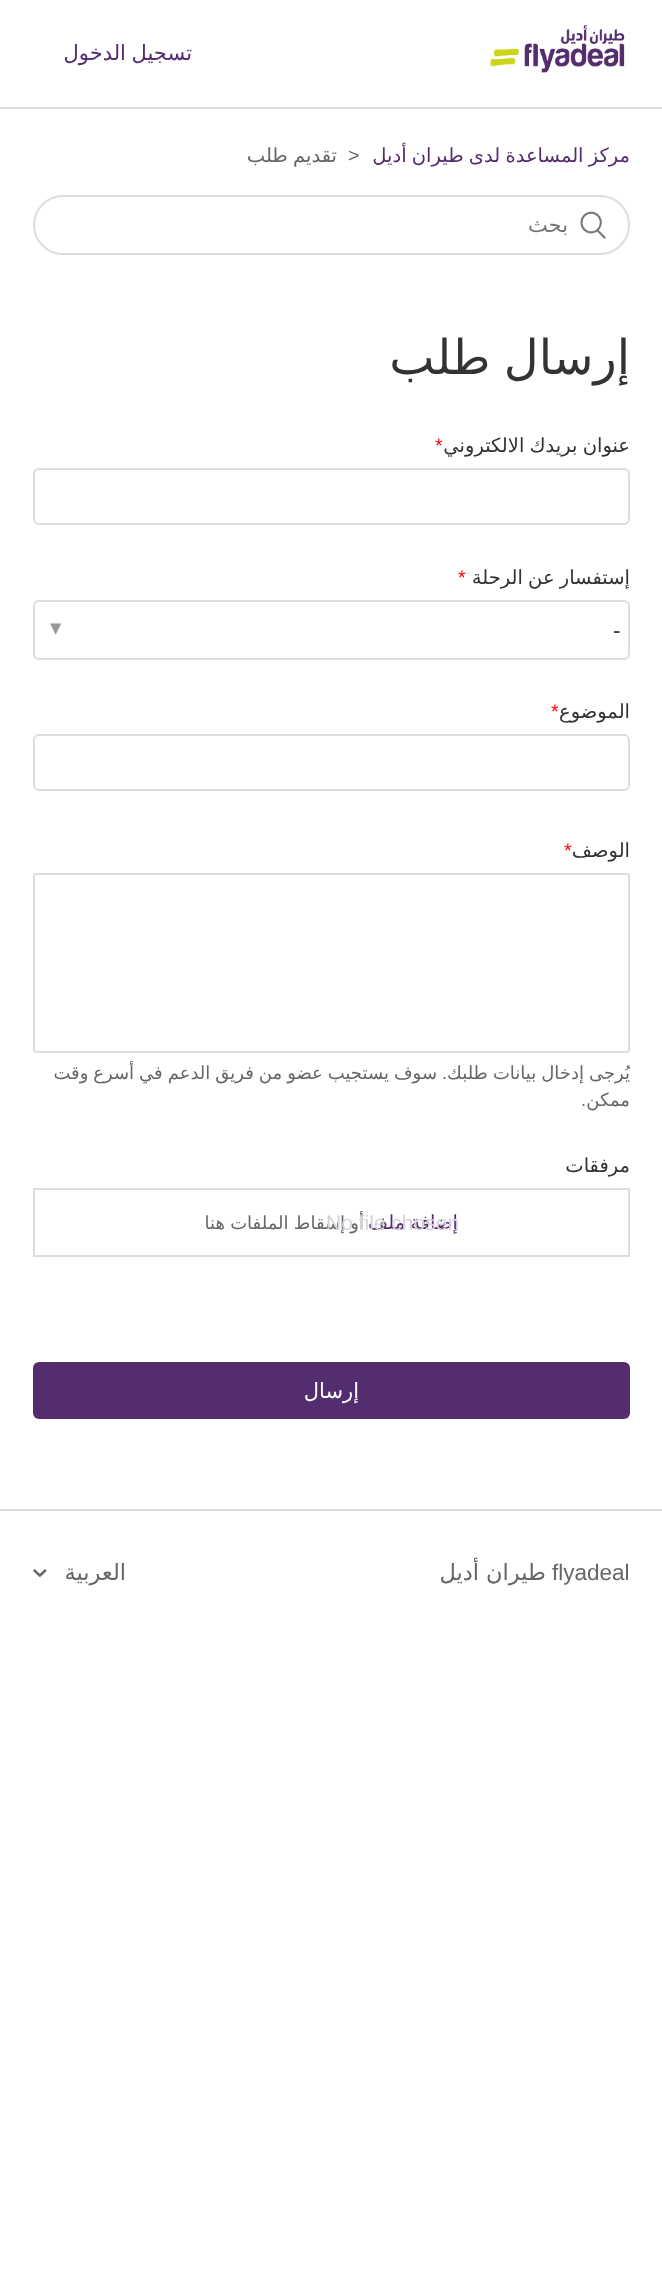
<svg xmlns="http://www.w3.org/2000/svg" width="662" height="2276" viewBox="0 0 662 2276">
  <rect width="100%" height="100%" fill="#ffffff"/>
  <image x="490" y="25" width="135" height="48" href="img1.png"/>
  <text x="192" y="60" word-spacing="-1" font-family="DejaVu Sans" font-size="21" direction="rtl" fill="#532d6d">تسجيل الدخول</text>
  <rect x="0" y="107" width="662" height="2" fill="#dddddd"/>
  <text x="630" y="162" word-spacing="-1" font-family="DejaVu Sans" font-size="19.5" direction="rtl" fill="#532d6d">مركز المساعدة لدى طيران أديل</text>
  <text x="348" y="162" font-family="Liberation Sans" font-size="19.5" fill="#666666">&gt;</text>
  <text x="337" y="162" word-spacing="-1" font-family="DejaVu Sans" font-size="19.5" direction="rtl" fill="#666666">تقديم طلب</text>
  <rect x="34" y="196" width="595" height="58" rx="29" fill="none" stroke="#dddddd" stroke-width="2"/>
  <image x="580" y="211" width="26" height="28" href="img2.png"/>
  <text x="568" y="232" font-family="DejaVu Sans" font-size="21" direction="rtl" fill="#757575">بحث</text>
  <text x="630" y="374" word-spacing="-2" font-family="DejaVu Sans" font-size="48" direction="rtl" fill="#333333">إرسال طلب</text>
  <text x="630" y="452" word-spacing="-1" font-family="DejaVu Sans" font-size="19.5" direction="rtl" fill="#333333">عنوان بريدك الالكتروني</text>
  <text x="435" y="452" font-family="Liberation Sans" font-size="19.5" fill="#ff0000">*</text>
  <rect x="34" y="469" width="595" height="55" rx="5" fill="none" stroke="#dddddd" stroke-width="2"/>
  <text x="630" y="584" word-spacing="-1" font-family="DejaVu Sans" font-size="19.5" direction="rtl" fill="#333333">إستفسار عن الرحلة</text>
  <text x="458" y="584" font-family="Liberation Sans" font-size="19.5" fill="#ff0000">*</text>
  <rect x="34" y="601" width="595" height="58" rx="5" fill="none" stroke="#dddddd" stroke-width="2"/>
  <text x="613" y="638" font-family="Liberation Sans" font-size="22.5" fill="#333333">-</text>
  <text x="50" y="635" font-family="DejaVu Sans" font-size="22.5" fill="#999999">▾</text>
  <text x="630" y="718" font-family="DejaVu Sans" font-size="19.5" direction="rtl" fill="#333333">الموضوع</text>
  <text x="551" y="718" font-family="Liberation Sans" font-size="19.5" fill="#ff0000">*</text>
  <rect x="34" y="735" width="595" height="55" rx="5" fill="none" stroke="#dddddd" stroke-width="2"/>
  <text x="630" y="857" font-family="DejaVu Sans" font-size="19.5" direction="rtl" fill="#333333">الوصف</text>
  <text x="564" y="857" font-family="Liberation Sans" font-size="19.5" fill="#ff0000">*</text>
  <rect x="34" y="874" width="595" height="178" rx="2" fill="none" stroke="#dddddd" stroke-width="2"/>
  <text x="630" y="1079" word-spacing="-0.75" font-family="DejaVu Sans" font-size="18" direction="rtl" fill="#666666">يُرجى إدخال بيانات طلبك</text>
  <text x="447" y="1079" font-family="Liberation Sans" font-size="18" direction="rtl" fill="#666666">.</text>
  <text x="437" y="1079" word-spacing="-0.75" font-family="DejaVu Sans" font-size="18" direction="rtl" fill="#666666">سوف يستجيب عضو من فريق الدعم في أسرع وقت</text>
  <text x="630" y="1106" font-family="DejaVu Sans" font-size="18" direction="rtl" fill="#666666">ممكن</text>
  <text x="586" y="1106" font-family="Liberation Sans" font-size="18" direction="rtl" fill="#666666">.</text>
  <text x="630" y="1172" font-family="DejaVu Sans" font-size="19.5" direction="rtl" fill="#333333">مرفقات</text>
  <rect x="34" y="1189" width="595" height="67" fill="none" stroke="#dddddd" stroke-width="2"/>
  <text x="458" y="1229" word-spacing="-1" font-family="DejaVu Sans" font-size="19.5" direction="rtl" fill="#532d6d">إضافة ملف</text>
  <text x="364" y="1229" word-spacing="-0.5" font-family="DejaVu Sans" font-size="18" direction="rtl" fill="#666666">أو إسقاط الملفات هنا</text>
  <text x="326" y="1230" font-family="Liberation Sans" font-size="21" fill="#d7d1dc">No file chosen</text>
  <rect x="33" y="1362" width="597" height="57" rx="6" fill="#532d6d"/>
  <text x="359" y="1398" font-family="DejaVu Sans" font-size="21" direction="rtl" fill="#ffffff">إرسال</text>
  <rect x="0" y="1509" width="662" height="2" fill="#dddddd"/>
  <text x="552" y="1580" font-family="Liberation Sans" font-size="22.5" fill="#666666">flyadeal</text>
  <text x="546" y="1580" font-family="DejaVu Sans" font-size="22.5" direction="rtl" fill="#666666">طيران أديل</text>
  <text x="126" y="1580" font-family="DejaVu Sans" font-size="22.5" direction="rtl" fill="#666666">العربية</text>
  <image x="33" y="1569" width="14" height="8" href="img3.png"/>
</svg>
